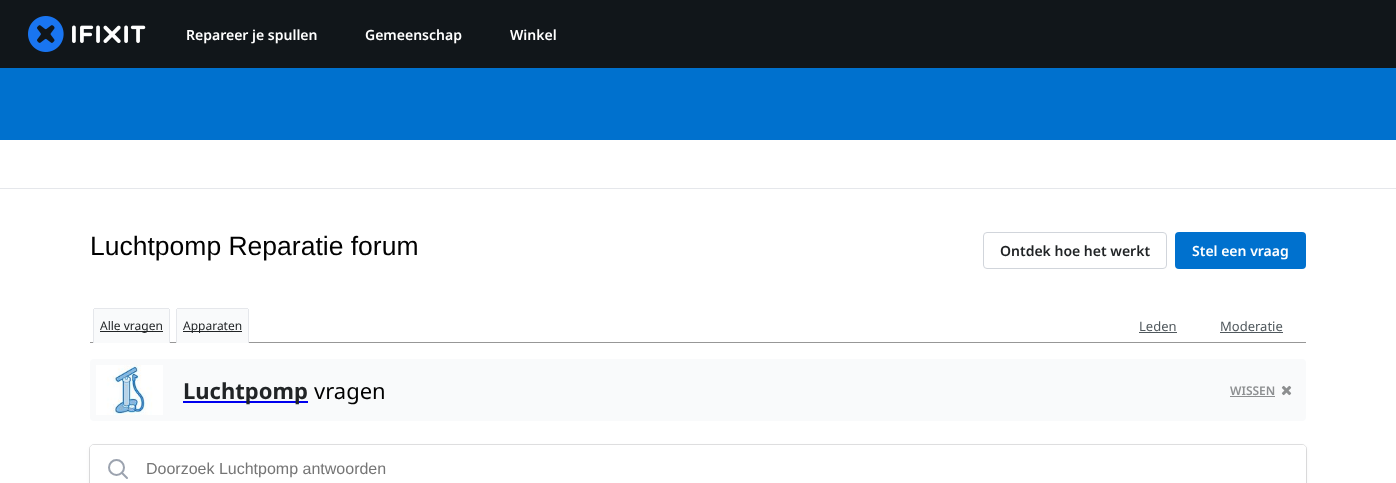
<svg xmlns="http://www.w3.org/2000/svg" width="1396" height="483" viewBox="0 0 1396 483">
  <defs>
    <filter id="blur1" x="-50%" y="-200%" width="200%" height="500%"><feGaussianBlur stdDeviation="2"/></filter>
  </defs>
  <rect width="100%" height="100%" fill="#ffffff"/>
  <rect x="0" y="0" width="1396" height="68" fill="#11161a"/>
  <image x="28" y="16" width="118" height="36" href="img1.png"/>
  <text x="186" y="40" font-family="Noto Sans" font-size="14" font-weight="600" fill="#ffffff">Repareer je spullen</text>
  <text x="365" y="40" font-family="Noto Sans" font-size="14" font-weight="600" fill="#ffffff">Gemeenschap</text>
  <text x="510" y="40" font-family="Noto Sans" font-size="14" font-weight="600" fill="#ffffff">Winkel</text>
  <rect x="0" y="68" width="1396" height="72" fill="#0071ce"/>
  <rect x="0" y="188" width="1396" height="1" fill="#e5e7eb"/>
  <text x="90" y="255" font-family="Liberation Sans" font-size="26.5" fill="#000000">Luchtpomp Reparatie forum</text>
  <rect x="983.5" y="232.5" width="183" height="36" rx="3.5" fill="none" stroke="#d1d5db"/>
  <text x="1000" y="256" font-family="Noto Sans" font-size="14" font-weight="600" fill="#212426">Ontdek hoe het werkt</text>
  <rect x="1175" y="232" width="131" height="37" rx="4" fill="#0071ce"/>
  <text x="1192" y="256" font-family="Noto Sans" font-size="14" font-weight="600" fill="#ffffff">Stel een vraag</text>
  <rect x="90" y="342" width="1216" height="1" fill="#979797"/>
  <path d="M95 309H168C168.5 309 169 309.5 169 310V343H94V310C94 309.5 94.5 309 95 309Z" fill="#f9fafb"/>
  <rect x="94" y="308" width="75" height="1" fill="#e5e7eb"/>
  <rect x="169" y="309" width="1" height="34" fill="#e5e7eb"/>
  <rect x="93" y="309" width="1" height="34" fill="#e5e7eb"/>
  <rect x="100" y="331" width="63" height="1" fill="#212426"/>
  <text x="100" y="330" font-family="Noto Sans" font-size="12" fill="#212426">Alle vragen</text>
  <path d="M178 309H247C247.5 309 248 309.5 248 310V343H177V310C177 309.5 177.5 309 178 309Z" fill="#f9fafb"/>
  <rect x="177" y="308" width="71" height="1" fill="#e5e7eb"/>
  <rect x="248" y="309" width="1" height="34" fill="#e5e7eb"/>
  <rect x="176" y="309" width="1" height="34" fill="#e5e7eb"/>
  <rect x="183" y="331" width="59" height="1" fill="#212426"/>
  <text x="183" y="330" font-family="Noto Sans" font-size="12" fill="#212426">Apparaten</text>
  <text x="1139" y="331" font-family="Noto Sans" font-size="13" fill="#50585d">Leden</text>
  <rect x="1139" y="332" width="38" height="1" fill="#50585d"/>
  <text x="1220" y="331" font-family="Noto Sans" font-size="13" fill="#50585d">Moderatie</text>
  <rect x="1220" y="332" width="63" height="1" fill="#50585d"/>
  <rect x="90" y="359" width="1216" height="62" rx="4" fill="#f9fafb"/>
  <image x="96" y="365" width="67" height="50" href="img2.png"/>
  <rect x="183" y="401" width="125" height="2" fill="#0000ee"/>
  <text x="183" y="399" font-family="Noto Sans" font-size="22" font-weight="bold" fill="#212426">Luchtpomp</text>
  <text x="314" y="399" font-family="Noto Sans" font-size="22" fill="#000000">vragen</text>
  <text x="1230" y="395" font-family="Noto Sans" font-size="12" font-weight="600" fill="#8d8f91">WISSEN</text>
  <rect x="1230" y="396" width="45" height="1" fill="#8d8f91"/>
  <image x="1281" y="385" width="11" height="11" href="img3.png"/>
  <rect x="90" y="447" width="1216" height="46" rx="4" fill="#000306" fill-opacity="0.07" filter="url(#blur1)"/>
  <rect x="89.5" y="444.5" width="1217" height="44" rx="4.5" fill="none" stroke="#000306" stroke-opacity="0.12"/>
  <rect x="90" y="445" width="1216" height="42" rx="4" fill="#ffffff"/>
  <circle cx="116.5" cy="467.5" r="7.5" fill="none" stroke="#9ca3af" stroke-width="2"/>
  <path d="M127 478L122 473" fill="none" stroke="#9ca3af" stroke-width="2" stroke-linecap="round" stroke-linejoin="round"/>
  <text x="146" y="474" font-family="Liberation Sans" font-size="16" fill="#757575">Doorzoek Luchtpomp antwoorden</text>
</svg>
